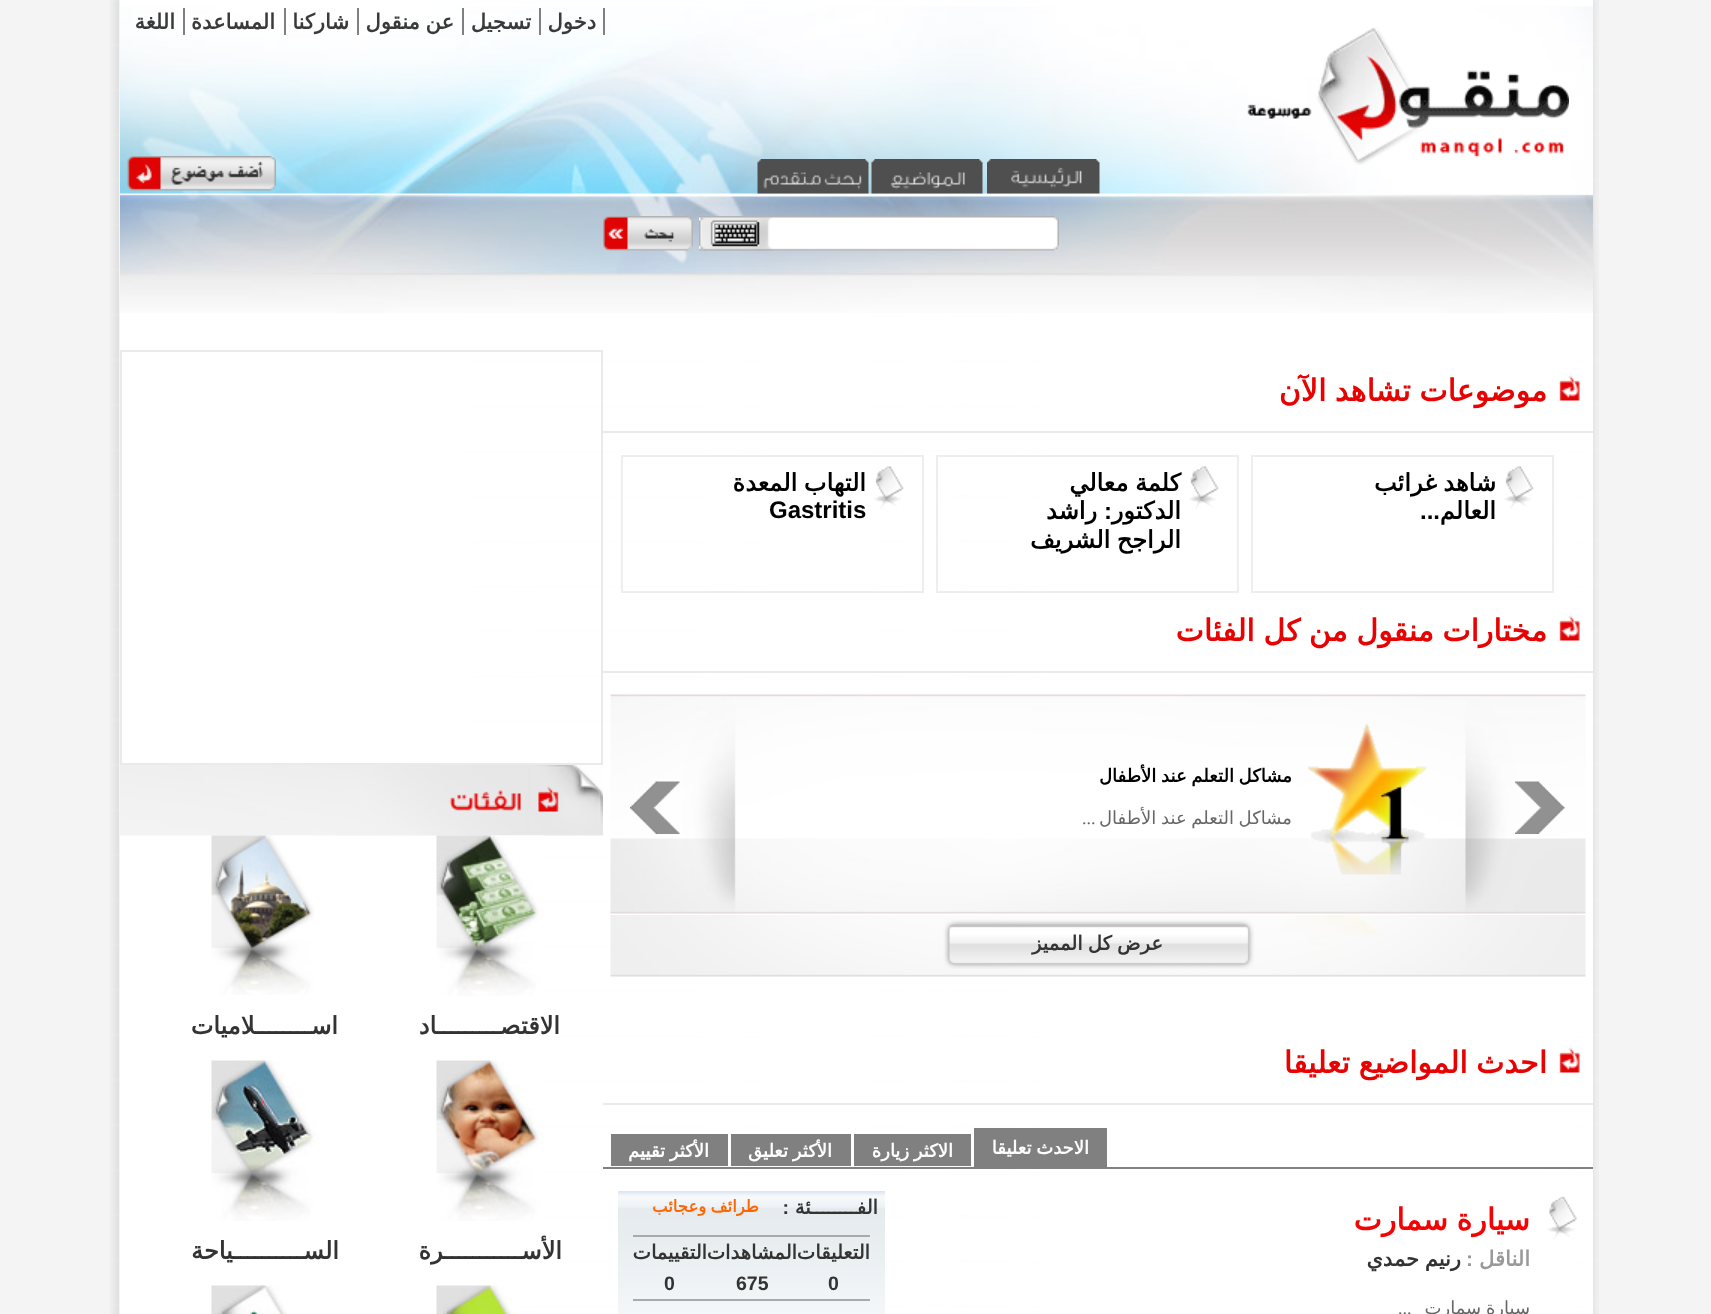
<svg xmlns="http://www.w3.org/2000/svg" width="1711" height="1314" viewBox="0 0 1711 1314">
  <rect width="100%" height="100%" fill="#f4f4f4"/>
  <image x="110" y="0" width="1489" height="1314" href="img1.png"/>
  <rect x="1589" y="0" width="4" height="1314" fill="#ffffff"/>
  <image x="120" y="6" width="1473" height="307" href="img2.png"/>
  <rect x="603" y="8" width="2" height="27" fill="#808080"/>
  <text x="596" y="29" font-family="DejaVu Sans" font-size="21" font-weight="bold" direction="rtl" fill="#3a3a3a">دخول</text>
  <rect x="539" y="8" width="2" height="27" fill="#808080"/>
  <text x="531" y="29" font-family="DejaVu Sans" font-size="21" font-weight="bold" direction="rtl" fill="#3a3a3a">تسجيل</text>
  <rect x="462" y="8" width="2" height="27" fill="#808080"/>
  <text x="454" y="29" word-spacing="-1" font-family="DejaVu Sans" font-size="21" font-weight="bold" direction="rtl" fill="#3a3a3a">عن منقول</text>
  <rect x="357" y="8" width="2" height="27" fill="#808080"/>
  <text x="349" y="29" font-family="DejaVu Sans" font-size="21" font-weight="bold" direction="rtl" fill="#3a3a3a">شاركنا</text>
  <rect x="284" y="8" width="2" height="27" fill="#808080"/>
  <text x="275" y="29" font-family="DejaVu Sans" font-size="21" font-weight="bold" direction="rtl" fill="#3a3a3a">المساعدة</text>
  <rect x="183" y="8" width="2" height="27" fill="#808080"/>
  <text x="175" y="29" font-family="DejaVu Sans" font-size="21" font-weight="bold" direction="rtl" fill="#3a3a3a">اللغة</text>
  <image x="987" y="159" width="113" height="35" href="img3.png"/>
  <image x="871" y="159" width="112" height="35" href="img4.png"/>
  <image x="757" y="159" width="112" height="35" href="img5.png"/>
  <image x="127" y="156" width="149" height="35" href="img6.png"/>
  <image x="1247" y="27" width="322" height="138" href="img7.png"/>
  <image x="699" y="216" width="360" height="35" href="img8.png"/>
  <image x="699" y="217" width="74" height="34" href="img9.png"/>
  <image x="603" y="216" width="90" height="35" href="img10.png"/>
  <image x="1559" y="375" width="21" height="26" href="img11.png"/>
  <rect x="603" y="431" width="990" height="2" fill="#eaeaea"/>
  <text x="1547" y="401" word-spacing="-1" font-family="DejaVu Sans" font-size="30" font-weight="bold" direction="rtl" fill="#e80303">موضوعات تشاهد الآن</text>
  <rect x="1252" y="456" width="301" height="136" fill="none" stroke="#eeeeee" stroke-width="2"/>
  <image x="1504" y="466" width="30" height="43" href="img12.png"/>
  <text x="1496" y="491" word-spacing="-1" font-family="DejaVu Sans" font-size="24" font-weight="bold" direction="rtl" fill="#000000">شاهد غرائب</text>
  <text x="1496" y="519" font-family="DejaVu Sans" font-size="24" font-weight="bold" direction="rtl" fill="#000000">العالم</text>
  <text x="1440" y="519" font-family="Liberation Sans" font-size="24" font-weight="bold" direction="rtl" fill="#000000">...</text>
  <rect x="937" y="456" width="301" height="136" fill="none" stroke="#eeeeee" stroke-width="2"/>
  <image x="1189" y="466" width="30" height="43" href="img13.png"/>
  <text x="1181" y="491" word-spacing="-1" font-family="DejaVu Sans" font-size="24" font-weight="bold" direction="rtl" fill="#000000">كلمة معالي</text>
  <text x="1181" y="519" font-family="DejaVu Sans" font-size="24" font-weight="bold" direction="rtl" fill="#000000">الدكتور</text>
  <text x="1112" y="519" font-family="Liberation Sans" font-size="24" font-weight="bold" direction="rtl" fill="#000000">:</text>
  <text x="1097" y="519" font-family="DejaVu Sans" font-size="24" font-weight="bold" direction="rtl" fill="#000000">راشد</text>
  <text x="1181" y="548" word-spacing="-1" font-family="DejaVu Sans" font-size="24" font-weight="bold" direction="rtl" fill="#000000">الراجح الشريف</text>
  <rect x="622" y="456" width="301" height="136" fill="none" stroke="#eeeeee" stroke-width="2"/>
  <image x="874" y="466" width="30" height="43" href="img14.png"/>
  <text x="866" y="491" word-spacing="-1" font-family="DejaVu Sans" font-size="24" font-weight="bold" direction="rtl" fill="#000000">التهاب المعدة</text>
  <text x="769" y="518" font-family="Liberation Sans" font-size="24" font-weight="bold" fill="#000000">Gastritis</text>
  <image x="1559" y="615" width="21" height="26" href="img11.png"/>
  <rect x="603" y="671" width="990" height="2" fill="#eaeaea"/>
  <text x="1547" y="641" word-spacing="-1" font-family="DejaVu Sans" font-size="30" font-weight="bold" direction="rtl" fill="#e80303">مختارات منقول من كل الفئات</text>
  <image x="610" y="694" width="976" height="220" href="img15.png"/>
  <image x="1515" y="781" width="50" height="53" href="img16.png"/>
  <image x="1308" y="724" width="119" height="151" href="img17.png"/>
  <text x="1292" y="782" word-spacing="-1" font-family="DejaVu Sans" font-size="18" font-weight="bold" direction="rtl" fill="#000000">مشاكل التعلم عند الأطفال</text>
  <text x="1292" y="824" word-spacing="-1" font-family="DejaVu Sans" font-size="18" direction="rtl" fill="#666666">مشاكل التعلم عند الأطفال</text>
  <text x="1082" y="824" font-family="Liberation Serif" font-size="18" fill="#666666">...</text>
  <image x="630" y="781" width="50" height="53" href="img18.png"/>
  <image x="610" y="915" width="976" height="62" href="img19.png"/>
  <text x="1163" y="950" word-spacing="-1" font-family="DejaVu Sans" font-size="19.5" font-weight="bold" direction="rtl" fill="#333333">عرض كل المميز</text>
  <image x="1559" y="1047" width="21" height="26" href="img11.png"/>
  <rect x="603" y="1103" width="990" height="2" fill="#eaeaea"/>
  <text x="1547" y="1073" word-spacing="-1" font-family="DejaVu Sans" font-size="30" font-weight="bold" direction="rtl" fill="#e80303">احدث المواضيع تعليقا</text>
  <rect x="974" y="1128" width="133" height="39" fill="#808080"/>
  <text x="1089" y="1154" word-spacing="-1" font-family="DejaVu Sans" font-size="18" font-weight="bold" direction="rtl" fill="#ffffff">الاحدث تعليقا</text>
  <rect x="854" y="1134" width="117" height="32" fill="#808080"/>
  <text x="953" y="1157" word-spacing="-1" font-family="DejaVu Sans" font-size="18" font-weight="bold" direction="rtl" fill="#ffffff">الاكثر زيارة</text>
  <rect x="731" y="1134" width="120" height="32" fill="#808080"/>
  <text x="832" y="1157" word-spacing="-1" font-family="DejaVu Sans" font-size="18" font-weight="bold" direction="rtl" fill="#ffffff">الأكثر تعليق</text>
  <rect x="611" y="1134" width="117" height="32" fill="#808080"/>
  <text x="709" y="1157" word-spacing="-1" font-family="DejaVu Sans" font-size="18" font-weight="bold" direction="rtl" fill="#ffffff">الأكثر تقييم</text>
  <rect x="603" y="1167" width="990" height="2" fill="#808080"/>
  <image x="1547" y="1196" width="30" height="43" href="img20.png"/>
  <text x="1530" y="1230" word-spacing="-1" font-family="DejaVu Sans" font-size="30" font-weight="bold" direction="rtl" fill="#f30404">سيارة سمارت</text>
  <text x="1530" y="1266" font-family="DejaVu Sans" font-size="21" font-weight="bold" direction="rtl" fill="#999999">الناقل</text>
  <text x="1466" y="1266" font-family="Liberation Sans" font-size="21" font-weight="bold" fill="#999999">:</text>
  <text x="1461" y="1266" word-spacing="-1" font-family="DejaVu Sans" font-size="21" font-weight="bold" direction="rtl" fill="#333333">رنيم حمدي</text>
  <text x="1530" y="1314" word-spacing="-1" font-family="DejaVu Sans" font-size="18" direction="rtl" fill="#666666">سيارة سمارت</text>
  <text x="1398" y="1314" font-family="Liberation Serif" font-size="18" fill="#666666">...</text>
  <image x="618" y="1191" width="267" height="123" href="img21.png"/>
  <text x="878" y="1214" font-family="DejaVu Sans" font-size="19.5" font-weight="bold" direction="rtl" fill="#333333">الفــــــــئة</text>
  <text x="789" y="1214" font-family="Liberation Sans" font-size="19.5" font-weight="bold" direction="rtl" fill="#333333">:</text>
  <text x="759" y="1212" word-spacing="-1" font-family="DejaVu Sans" font-size="16.5" font-weight="bold" direction="rtl" fill="#ff6600">طرائف وعجائب</text>
  <rect x="633" y="1235" width="237" height="2" fill="#aaaaaa"/>
  <rect x="633" y="1299" width="237" height="2" fill="#aaaaaa"/>
  <text x="870" y="1259" font-family="DejaVu Sans" font-size="19.5" font-weight="bold" direction="rtl" fill="#333333">التعليقات</text>
  <text x="797" y="1259" font-family="DejaVu Sans" font-size="19.5" font-weight="bold" direction="rtl" fill="#333333">المشاهدات</text>
  <text x="707" y="1259" font-family="DejaVu Sans" font-size="19.5" font-weight="bold" direction="rtl" fill="#333333">التقييمات</text>
  <text x="828" y="1290" font-family="Liberation Sans" font-size="19.5" font-weight="bold" fill="#333333">0</text>
  <text x="736" y="1290" font-family="Liberation Sans" font-size="19.5" font-weight="bold" fill="#333333">675</text>
  <text x="664" y="1290" font-family="Liberation Sans" font-size="19.5" font-weight="bold" fill="#333333">0</text>
  <rect x="121" y="351" width="481" height="413" fill="none" stroke="#eaeaea" stroke-width="2"/>
  <image x="120" y="765" width="483" height="71" href="img22.png"/>
  <image x="436" y="835" width="109" height="161" href="img23.png"/>
  <text x="560" y="1034" font-family="DejaVu Sans" font-size="24" font-weight="bold" direction="rtl" fill="#333333">الاقتصـــــــــاد</text>
  <image x="211" y="835" width="103" height="160" href="img24.png"/>
  <text x="338" y="1034" font-family="DejaVu Sans" font-size="24" font-weight="bold" direction="rtl" fill="#333333">اســــــــلاميات</text>
  <image x="436" y="1060" width="109" height="161" href="img25.png"/>
  <text x="562" y="1259" font-family="DejaVu Sans" font-size="24" font-weight="bold" direction="rtl" fill="#333333">الأســـــــــــرة</text>
  <image x="211" y="1060" width="108" height="161" href="img26.png"/>
  <text x="339" y="1259" font-family="DejaVu Sans" font-size="24" font-weight="bold" direction="rtl" fill="#333333">الســــــــــياحة</text>
  <image x="436" y="1285" width="81" height="29" href="img27.png"/>
  <image x="211" y="1285" width="76" height="29" href="img28.png"/>
</svg>
